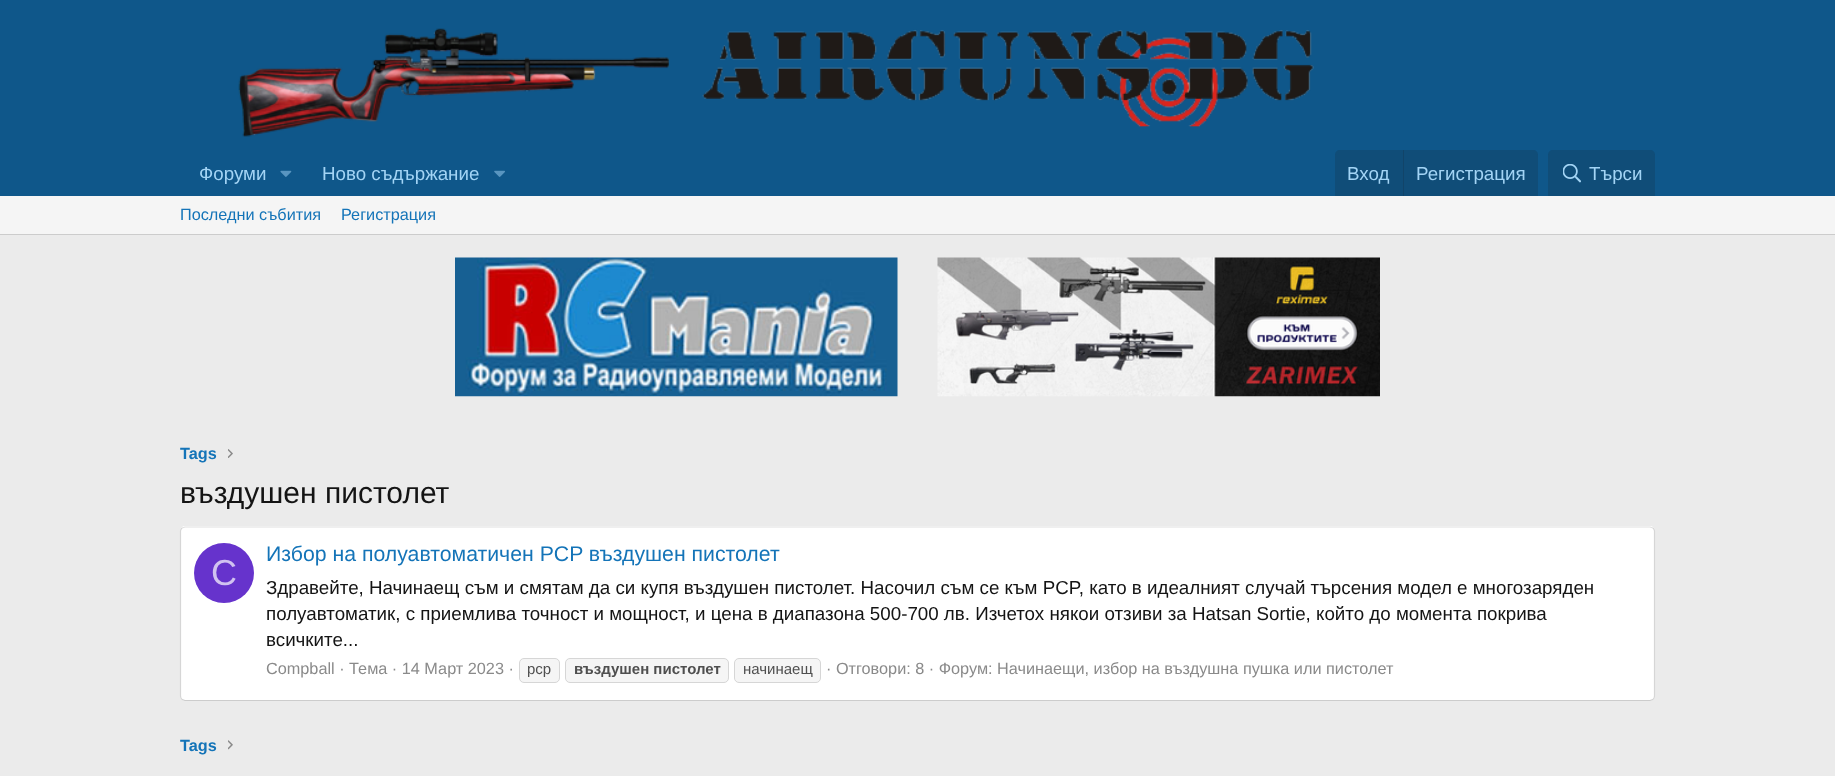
<svg xmlns="http://www.w3.org/2000/svg" width="1835" height="776" viewBox="0 0 1835 776">
  <rect width="100%" height="100%" fill="#ebebeb"/>
  <rect x="0" y="0" width="1835" height="196" fill="#0f578a"/>
  <image x="238" y="28" width="1076" height="109" href="img1.png"/>
  <text x="199" y="180" font-family="Liberation Sans" font-size="18.75" fill="#a3d4f5">Форуми</text>
  <image x="280" y="170" width="12" height="7" href="img2.png"/>
  <text x="322" y="180" font-family="Liberation Sans" font-size="18.75" fill="#a3d4f5">Ново съдържание</text>
  <image x="494" y="170" width="11" height="7" href="img3.png"/>
  <path d="M1340 150H1533C1536 150 1538 152 1538 155V196H1335V155C1335 152 1337 150 1340 150Z" fill="#104d78"/>
  <text x="1347" y="180" font-family="Liberation Sans" font-size="18.75" fill="#a3d4f5">Вход</text>
  <rect x="1403" y="150" width="1" height="46" fill="#114469"/>
  <text x="1416" y="180" font-family="Liberation Sans" font-size="18.75" fill="#a3d4f5">Регистрация</text>
  <path d="M1553 150H1650C1653 150 1655 152 1655 155V196H1548V155C1548 152 1550 150 1553 150Z" fill="#104d78"/>
  <image x="1563" y="164" width="18" height="19" href="img4.png"/>
  <text x="1589" y="180" font-family="Liberation Sans" font-size="18.75" fill="#a3d4f5">Търси</text>
  <rect x="0" y="196" width="1835" height="38" fill="#f5f5f5"/>
  <rect x="0" y="234" width="1835" height="1" fill="#cccccc"/>
  <text x="180" y="220" font-family="Liberation Sans" font-size="16.25" fill="#1474b8">Последни събития</text>
  <text x="341" y="220" font-family="Liberation Sans" font-size="16.25" fill="#1474b8">Регистрация</text>
  <image x="455" y="257" width="925" height="140" href="img5.png"/>
  <text x="180" y="459" font-family="Liberation Sans" font-size="16.25" font-weight="bold" fill="#1474b8">Tags</text>
  <image x="228" y="449" width="5" height="9" href="img6.png"/>
  <text x="180" y="503" font-family="Liberation Sans" font-size="30" fill="#141414">въздушен пистолет</text>
  <rect x="180" y="526" width="1475" height="175" rx="5" fill="#ffffff"/>
  <path d="M182 528L185 527H1650L1653 528" fill="none" stroke="#e0e0e0" stroke-width="1.2"/>
  <path d="M1653 528C1654 529 1654.5 530 1654.5 531V696C1654.5 697.5 1654 698.5 1653 699.5" fill="none" stroke="#d6d6d6" stroke-width="1.2"/>
  <path d="M1653 699.5L1650 700.5H185L182 699.5" fill="none" stroke="#cccccc" stroke-width="1.2"/>
  <path d="M182 699.5C181 698.5 180.5 697.5 180.5 696V531C180.5 530 181 529 182 528" fill="none" stroke="#d6d6d6" stroke-width="1.2"/>
  <circle cx="224" cy="573" r="30" fill="#6633cc"/>
  <text x="211" y="585" font-family="Liberation Sans" font-size="36" fill="#d1c2f0">C</text>
  <text x="266" y="561" font-family="Liberation Sans" font-size="21.25" fill="#1474b8">Избор на полуавтоматичен PCP въздушен пистолет</text>
  <text x="266" y="594" font-family="Liberation Sans" font-size="18.75" fill="#141414">Здравейте, Начинаещ съм и смятам да си купя въздушен пистолет. Насочил съм се към PCP, като в идеалният случай търсения модел е многозаряден</text>
  <text x="266" y="620" font-family="Liberation Sans" font-size="18.75" fill="#141414">полуавтоматик, с приемлива точност и мощност, и цена в диапазона 500-700 лв. Изчетох някои отзиви за Hatsan Sortie, който до момента покрива</text>
  <text x="266" y="646" font-family="Liberation Sans" font-size="18.75" fill="#141414">всичките...</text>
  <text x="266" y="674" font-family="Liberation Sans" font-size="16.25" fill="#8a8a8a">Compball · Тема · 14 Март 2023 ·</text>
  <rect x="519.5" y="658.5" width="40" height="24" rx="4.5" fill="#f5f5f5" stroke="#d6d6d6"/>
  <text x="527" y="674" font-family="Liberation Sans" font-size="15" fill="#4f4f4f">pcp</text>
  <rect x="565.5" y="658.5" width="163" height="24" rx="4.5" fill="#f5f5f5" stroke="#d6d6d6"/>
  <text x="574" y="674" font-family="Liberation Sans" font-size="15" font-weight="bold" fill="#4f4f4f">въздушен пистолет</text>
  <rect x="734.5" y="658.5" width="86" height="24" rx="4.5" fill="#f5f5f5" stroke="#d6d6d6"/>
  <text x="743" y="674" font-family="Liberation Sans" font-size="15" fill="#4f4f4f">начинаещ</text>
  <text x="826" y="674" font-family="Liberation Sans" font-size="16.25" fill="#8a8a8a">· Отговори: 8 · Форум: Начинаещи, избор на въздушна пушка или пистолет</text>
  <text x="180" y="751" font-family="Liberation Sans" font-size="16.25" font-weight="bold" fill="#1474b8">Tags</text>
  <image x="228" y="740" width="5" height="10" href="img7.png"/>
</svg>
